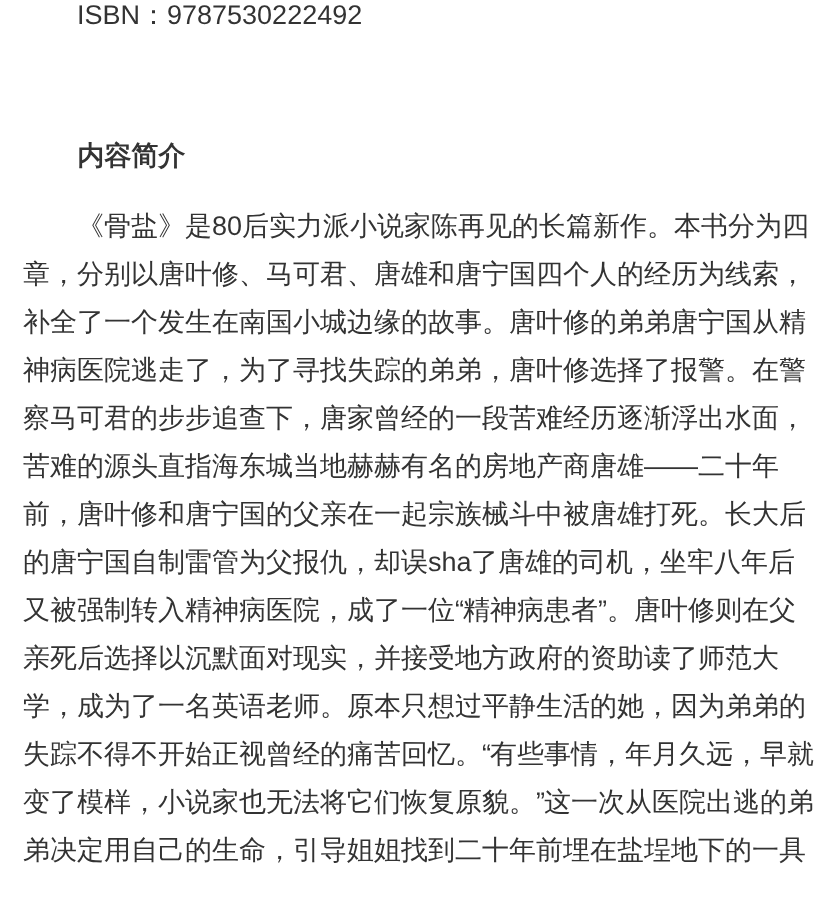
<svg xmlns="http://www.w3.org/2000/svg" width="837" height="897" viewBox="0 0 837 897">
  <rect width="100%" height="100%" fill="#ffffff"/>
  <text x="77" y="24" font-family="Liberation Sans" font-size="27" fill="#333333">ISBN</text>
  <text x="140" y="24" font-family="WenQuanYi Zen Hei" font-size="27" font-weight="500" fill="#333333">：</text>
  <text x="167" y="24" font-family="Liberation Sans" font-size="27" fill="#333333">9787530222492</text>
  <text x="77" y="165" font-family="WenQuanYi Zen Hei" font-size="27" font-weight="bold" fill="#333333">内容简介</text>
  <text x="77" y="235" font-family="WenQuanYi Zen Hei" font-size="27" font-weight="500" fill="#333333">《骨盐》是</text>
  <text x="212" y="235" font-family="Liberation Sans" font-size="27" fill="#333333">80</text>
  <text x="242" y="235" font-family="WenQuanYi Zen Hei" font-size="27" font-weight="500" fill="#333333">后实力派小说家陈再见的长篇新作。本书分为四</text>
  <text x="23" y="283" font-family="WenQuanYi Zen Hei" font-size="27" font-weight="500" fill="#333333">章，分别以唐叶修、马可君、唐雄和唐宁国四个人的经历为线索，</text>
  <text x="23" y="331" font-family="WenQuanYi Zen Hei" font-size="27" font-weight="500" fill="#333333">补全了一个发生在南国小城边缘的故事。唐叶修的弟弟唐宁国从精</text>
  <text x="23" y="379" font-family="WenQuanYi Zen Hei" font-size="27" font-weight="500" fill="#333333">神病医院逃走了，为了寻找失踪的弟弟，唐叶修选择了报警。在警</text>
  <text x="23" y="427" font-family="WenQuanYi Zen Hei" font-size="27" font-weight="500" fill="#333333">察马可君的步步追查下，唐家曾经的一段苦难经历逐渐浮出水面，</text>
  <text x="23" y="475" font-family="WenQuanYi Zen Hei" font-size="27" font-weight="500" fill="#333333">苦难的源头直指海东城当地赫赫有名的房地产商唐雄</text>
  <text x="644" y="475" font-family="Liberation Sans" font-size="27" fill="#333333">——</text>
  <text x="698" y="475" font-family="WenQuanYi Zen Hei" font-size="27" font-weight="500" fill="#333333">二十年</text>
  <text x="23" y="523" font-family="WenQuanYi Zen Hei" font-size="27" font-weight="500" fill="#333333">前，唐叶修和唐宁国的父亲在一起宗族械斗中被唐雄打死。长大后</text>
  <text x="23" y="571" font-family="WenQuanYi Zen Hei" font-size="27" font-weight="500" fill="#333333">的唐宁国自制雷管为父报仇，却误</text>
  <text x="428" y="571" font-family="Liberation Sans" font-size="27" fill="#333333">sha</text>
  <text x="471" y="571" font-family="WenQuanYi Zen Hei" font-size="27" font-weight="500" fill="#333333">了唐雄的司机，坐牢八年后</text>
  <text x="23" y="619" font-family="WenQuanYi Zen Hei" font-size="27" font-weight="500" fill="#333333">又被强制转入精神病医院，成了一位</text>
  <text x="455" y="619" font-family="Liberation Sans" font-size="27" fill="#333333">“</text>
  <text x="463" y="619" font-family="WenQuanYi Zen Hei" font-size="27" font-weight="500" fill="#333333">精神病患者</text>
  <text x="598" y="619" font-family="Liberation Sans" font-size="27" fill="#333333">”</text>
  <text x="607" y="619" font-family="WenQuanYi Zen Hei" font-size="27" font-weight="500" fill="#333333">。唐叶修则在父</text>
  <text x="23" y="667" font-family="WenQuanYi Zen Hei" font-size="27" font-weight="500" fill="#333333">亲死后选择以沉默面对现实，并接受地方政府的资助读了师范大</text>
  <text x="23" y="715" font-family="WenQuanYi Zen Hei" font-size="27" font-weight="500" fill="#333333">学，成为了一名英语老师。原本只想过平静生活的她，因为弟弟的</text>
  <text x="23" y="763" font-family="WenQuanYi Zen Hei" font-size="27" font-weight="500" fill="#333333">失踪不得不开始正视曾经的痛苦回忆。</text>
  <text x="482" y="763" font-family="Liberation Sans" font-size="27" fill="#333333">“</text>
  <text x="490" y="763" font-family="WenQuanYi Zen Hei" font-size="27" font-weight="500" fill="#333333">有些事情，年月久远，早就</text>
  <text x="23" y="811" font-family="WenQuanYi Zen Hei" font-size="27" font-weight="500" fill="#333333">变了模样，小说家也无法将它们恢复原貌。</text>
  <text x="536" y="811" font-family="Liberation Sans" font-size="27" fill="#333333">”</text>
  <text x="544" y="811" font-family="WenQuanYi Zen Hei" font-size="27" font-weight="500" fill="#333333">这一次从医院出逃的弟</text>
  <text x="23" y="859" font-family="WenQuanYi Zen Hei" font-size="27" font-weight="500" fill="#333333">弟决定用自己的生命，引导姐姐找到二十年前埋在盐埕地下的一具</text>
</svg>
